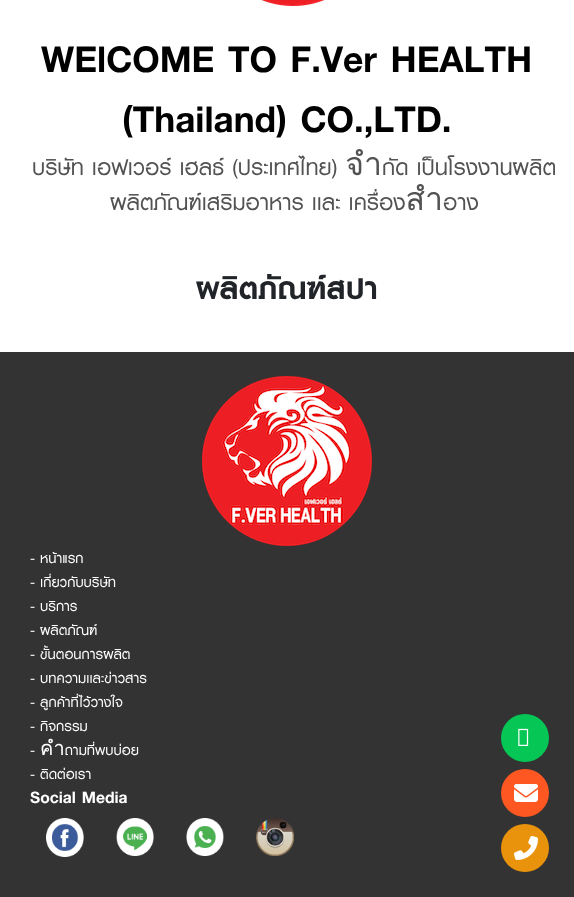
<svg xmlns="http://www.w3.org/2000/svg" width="574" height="897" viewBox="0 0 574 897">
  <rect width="100%" height="100%" fill="#ffffff"/>
  <image x="261" y="0" width="64" height="6" href="img1.png"/>
  <text x="41" y="72" font-family="'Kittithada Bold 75'" font-size="54" font-weight="bold" fill="#000000">WElCOME TO F.Ver HEALTH</text>
  <text x="122" y="132" font-family="'Kittithada Bold 75'" font-size="54" font-weight="bold" fill="#000000">(Thailand) CO.,LTD.</text>
  <text x="32" y="175" font-family="'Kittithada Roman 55'" font-size="32" fill="#525252">บริษัท เอฟเวอร์ เฮลธ์ (ประเทศไทย) จำกัด เป็นโรงงานผลิต</text>
  <text x="110" y="210" font-family="'Kittithada Roman 55'" font-size="32" fill="#525252">ผลิตภัณฑ์เสริมอาหาร เเละ เครื่องสำอาง</text>
  <text x="196" y="299" font-family="'Kittithada Bold 75'" font-size="44" font-weight="bold" fill="#212529">ผลิตภัณฑ์สปา</text>
  <rect x="0" y="352" width="574" height="545" fill="#333333"/>
  <image x="202" y="376" width="170" height="170" href="img2.png"/>
  <text x="30" y="563" font-family="'Kittithada Roman 55'" font-size="20" fill="#ffffff">- หน้าแรก</text>
  <text x="30" y="587" font-family="'Kittithada Roman 55'" font-size="20" fill="#ffffff">- เกี่ยวกับบริษัท</text>
  <text x="30" y="611" font-family="'Kittithada Roman 55'" font-size="20" fill="#ffffff">- บริการ</text>
  <text x="30" y="635" font-family="'Kittithada Roman 55'" font-size="20" fill="#ffffff">- ผลิตภัณฑ์</text>
  <text x="30" y="659" font-family="'Kittithada Roman 55'" font-size="20" fill="#ffffff">- ขั้นตอนการผลิต</text>
  <text x="30" y="683" font-family="'Kittithada Roman 55'" font-size="20" fill="#ffffff">- บทความเเละข่าวสาร</text>
  <text x="30" y="707" font-family="'Kittithada Roman 55'" font-size="20" fill="#ffffff">- ลูกค้าที่ไว้วางใจ</text>
  <text x="30" y="731" font-family="'Kittithada Roman 55'" font-size="20" fill="#ffffff">- กิจกรรม</text>
  <text x="30" y="755" font-family="'Kittithada Roman 55'" font-size="20" fill="#ffffff">- คำถามที่พบบ่อย</text>
  <text x="30" y="779" font-family="'Kittithada Roman 55'" font-size="20" fill="#ffffff">- ติดต่อเรา</text>
  <text x="30" y="803" font-family="'Kittithada Bold 75'" font-size="24" font-weight="bold" fill="#ffffff">Social Media</text>
  <image x="46" y="818" width="38" height="39" href="img3.png"/>
  <image x="116" y="818" width="38" height="38" href="img4.png"/>
  <image x="186" y="818" width="38" height="38" href="img5.png"/>
  <image x="256" y="818" width="38" height="38" href="img6.png"/>
  <circle cx="525" cy="738" r="24" fill="#06c755"/>
  <image x="518" y="728" width="11" height="18" href="img7.png"/>
  <circle cx="525" cy="793" r="24" fill="#ff5722"/>
  <image x="514" y="784" width="24" height="18" href="img8.png"/>
  <circle cx="525" cy="848" r="24" fill="#e9920c"/>
  <image x="514" y="836" width="24" height="24" href="img9.png"/>
</svg>
